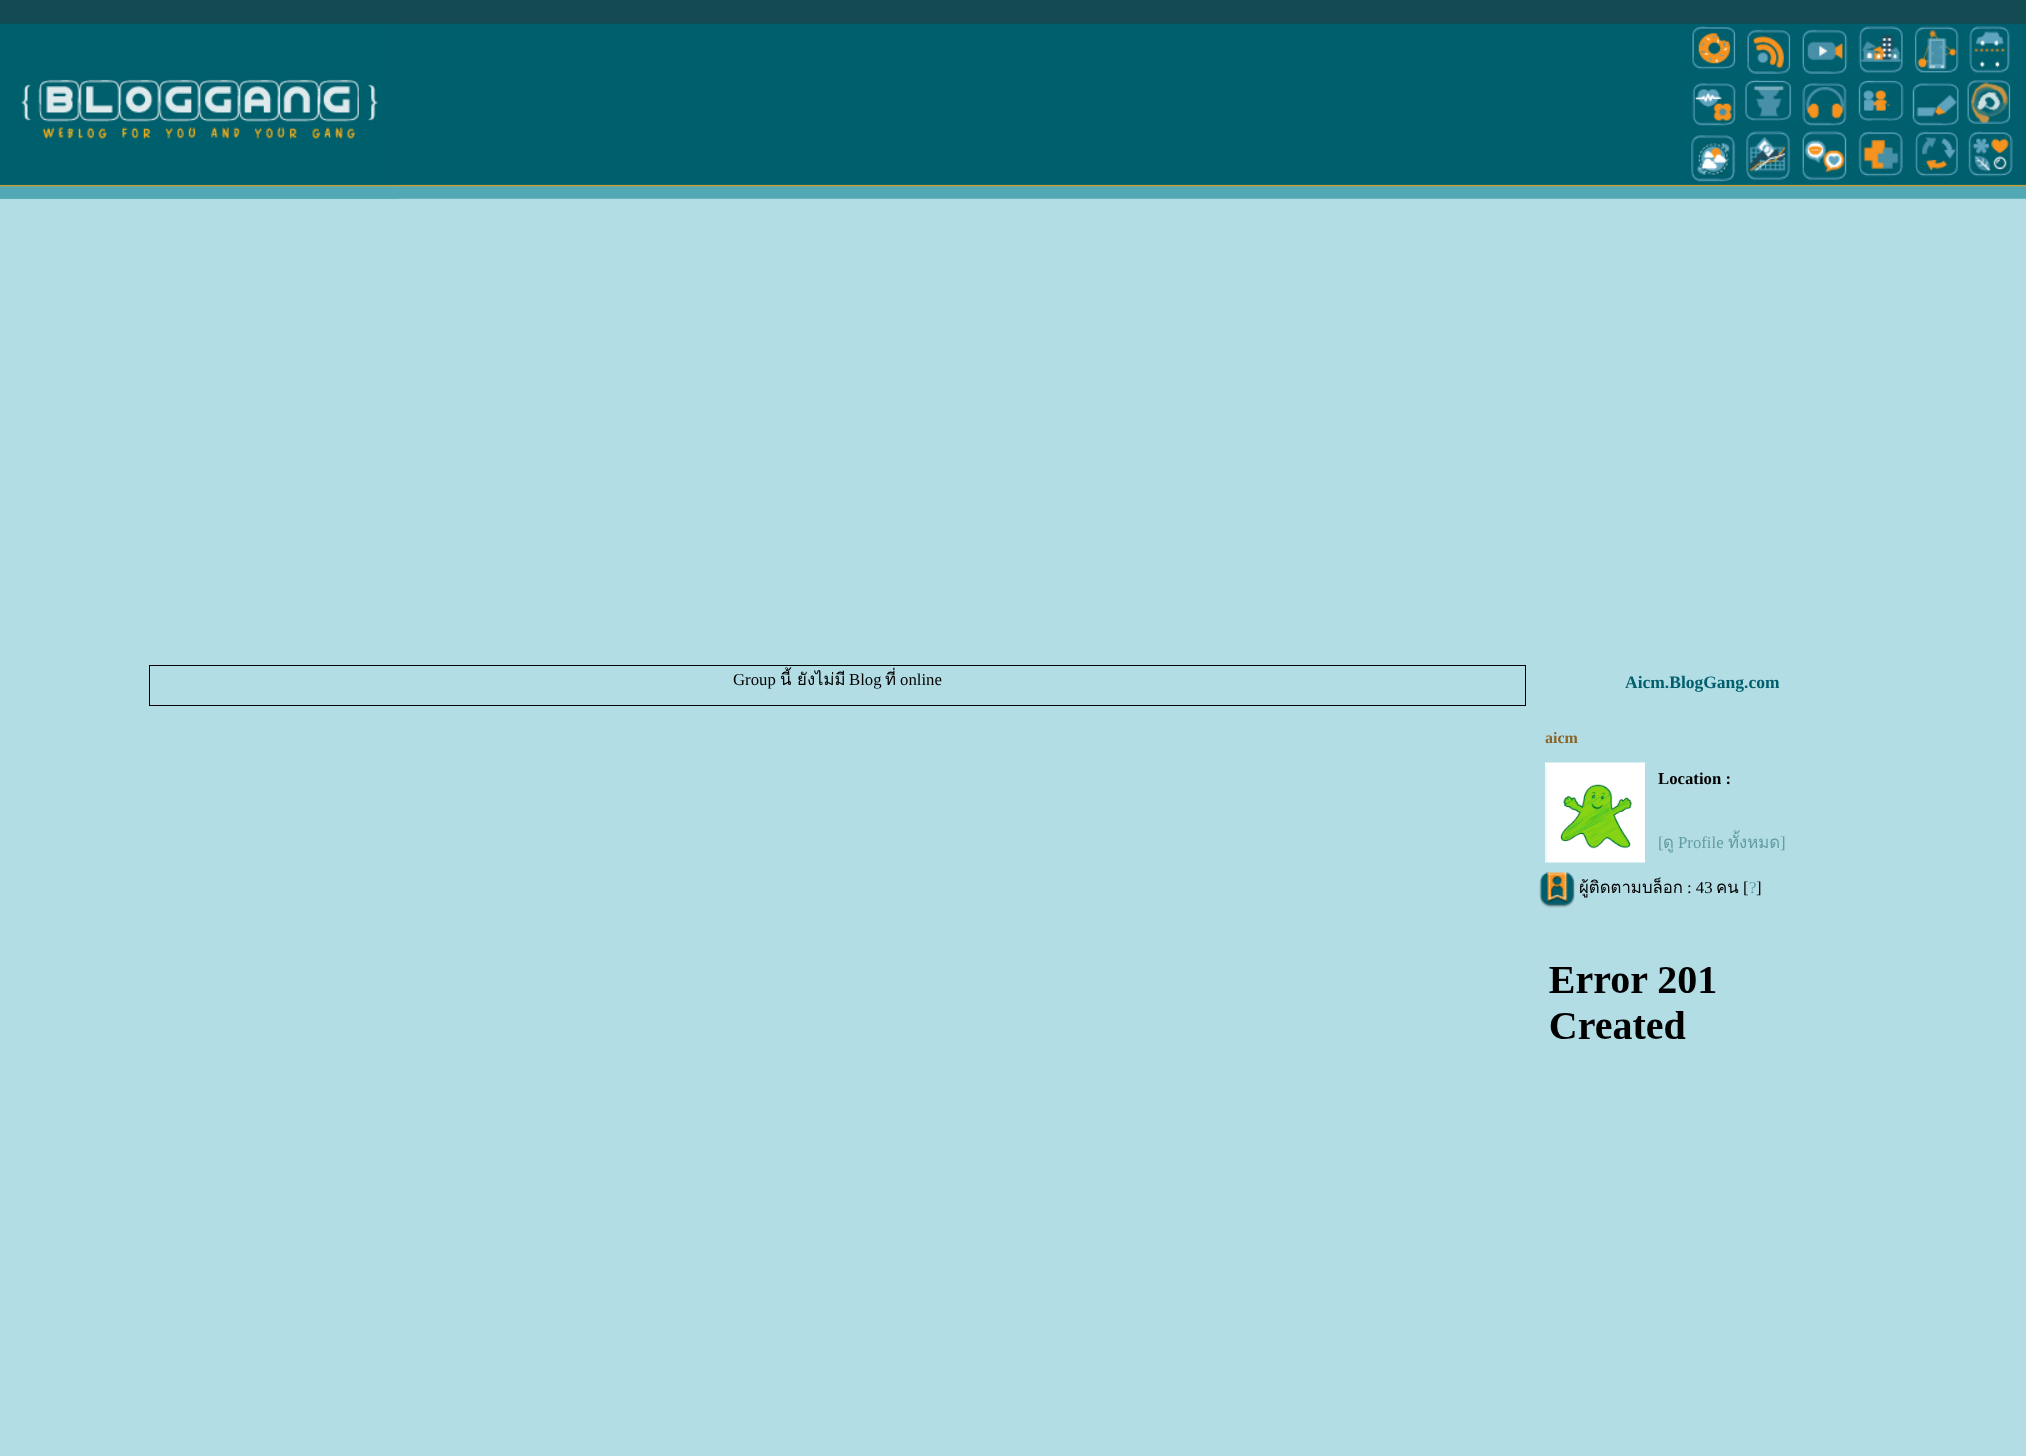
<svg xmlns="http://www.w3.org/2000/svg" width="2026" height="1456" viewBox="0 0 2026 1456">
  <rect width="100%" height="100%" fill="#b3dde5"/>
  <rect x="0" y="0" width="2026" height="24" fill="#144a51"/>
  <image x="0" y="23" width="2026" height="176" href="img2.png"/>
  <image x="0" y="23" width="399" height="1" href="img1.png"/>
  <image x="0" y="23" width="399" height="176" href="img3.png"/>
  <image x="1692" y="26" width="44" height="44" href="img4.png"/>
  <image x="1747" y="29" width="44" height="45" href="img5.png"/>
  <image x="1802" y="29" width="46" height="45" href="img6.png"/>
  <image x="1858" y="26" width="45" height="47" href="img7.png"/>
  <image x="1914" y="26" width="45" height="47" href="img8.png"/>
  <image x="1969" y="26" width="41" height="47" href="img9.png"/>
  <image x="1692" y="83" width="44" height="43" href="img10.png"/>
  <image x="1745" y="79" width="47" height="42" href="img11.png"/>
  <image x="1802" y="83" width="45" height="43" href="img12.png"/>
  <image x="1858" y="80" width="46" height="41" href="img13.png"/>
  <image x="1912" y="83" width="47" height="43" href="img14.png"/>
  <image x="1967" y="80" width="44" height="44" href="img15.png"/>
  <image x="1691" y="135" width="45" height="47" href="img16.png"/>
  <image x="1746" y="131" width="45" height="49" href="img17.png"/>
  <image x="1802" y="131" width="45" height="49" href="img18.png"/>
  <image x="1858" y="131" width="45" height="46" href="img19.png"/>
  <image x="1915" y="131" width="43" height="46" href="img20.png"/>
  <image x="1968" y="131" width="45" height="46" href="img21.png"/>
  <rect x="149.5" y="665.5" width="1376" height="40" fill="none" stroke="#000000"/>
  <text x="733" y="685" font-family="Liberation Serif" font-size="16.75" fill="#000000">Group</text>
  <text x="780" y="685" font-family="Loma" font-size="16.75" fill="#000000">นี้ ยังไม่มี</text>
  <text x="849" y="685" font-family="Liberation Serif" font-size="16.75" fill="#000000">Blog</text>
  <text x="885" y="685" font-family="Loma" font-size="16.75" fill="#000000">ที่</text>
  <text x="900" y="685" font-family="Liberation Serif" font-size="16.75" fill="#000000">online</text>
  <text x="1625" y="688" font-family="Liberation Serif" font-size="17.5" font-weight="bold" fill="#005f6c">Aicm.BlogGang.com</text>
  <text x="1545" y="743" font-family="Liberation Serif" font-size="16" font-weight="bold" fill="#8a6529">aicm</text>
  <image x="1545" y="762" width="100" height="101" href="img22.png"/>
  <text x="1658" y="784" font-family="Liberation Serif" font-size="16.75" font-weight="bold" fill="#000000">Location :</text>
  <text x="1658" y="848" font-family="Liberation Serif" font-size="16.75" fill="#629ca3">[</text>
  <text x="1678" y="848" font-family="Liberation Serif" font-size="16.75" fill="#629ca3">Profile</text>
  <text x="1728" y="848" font-family="Loma" font-size="16.75" fill="#629ca3">ทั้งหมด</text>
  <text x="1780" y="848" font-family="Liberation Serif" font-size="16.75" fill="#629ca3">]</text>
  <text x="1663" y="848" font-family="Loma" font-size="16.75" fill="#629ca3">ดู</text>
  <image x="1539" y="872" width="36" height="36" href="img23.png"/>
  <text x="1579" y="893" font-family="Loma" font-size="16.75" fill="#000000">ผู้ติดตามบล็อก</text>
  <text x="1687" y="893" font-family="Liberation Serif" font-size="16.75" fill="#000000">: 43</text>
  <text x="1716" y="893" font-family="Loma" font-size="16.75" fill="#000000">คน</text>
  <text x="1743" y="893" font-family="Liberation Serif" font-size="16.75" fill="#000000">[</text>
  <text x="1749" y="893" font-family="Liberation Serif" font-size="16.75" fill="#629ca3">?</text>
  <text x="1756" y="893" font-family="Liberation Serif" font-size="16.75" fill="#000000">]</text>
  <image x="1549" y="967" width="167" height="72" href="img24.png"/>
</svg>
